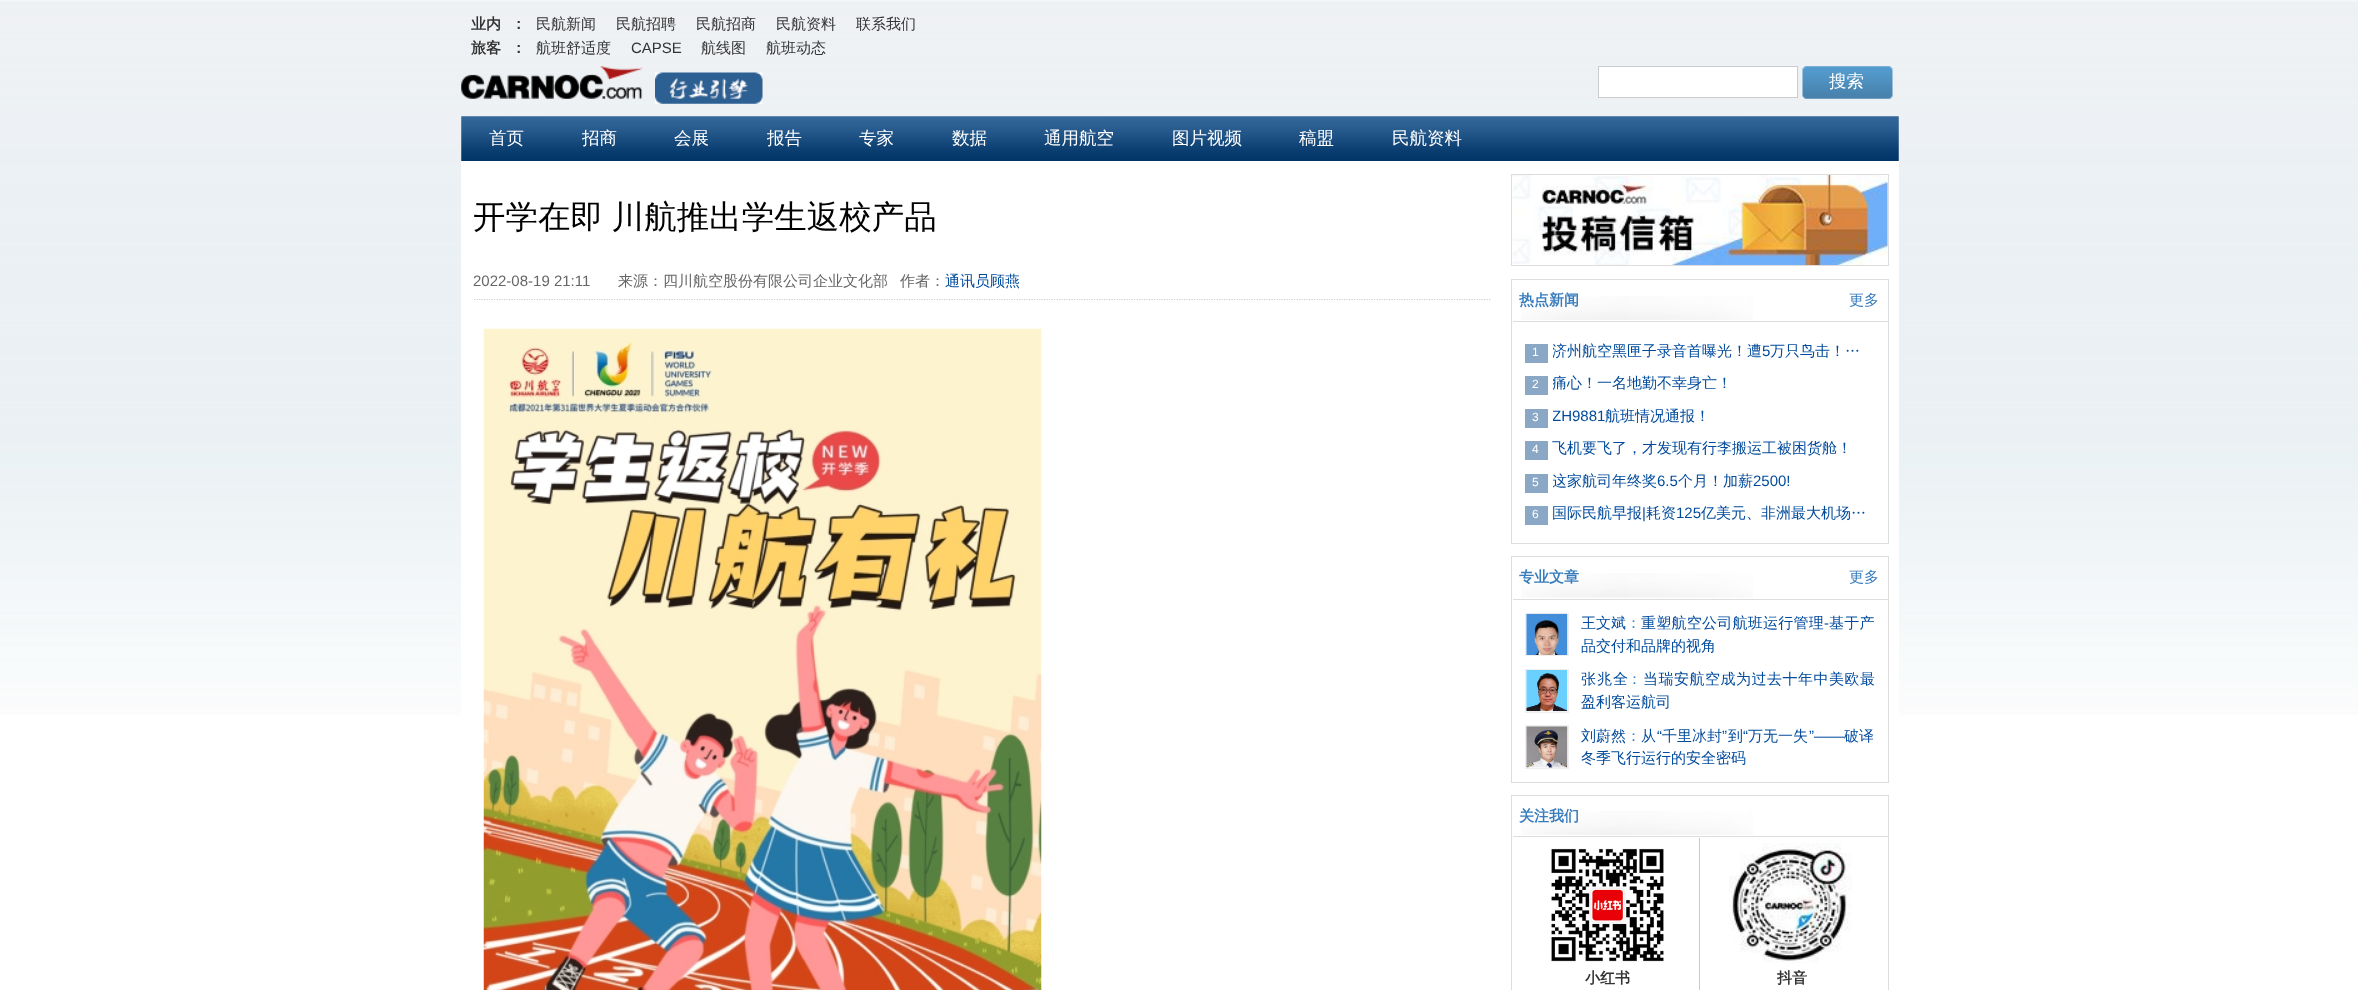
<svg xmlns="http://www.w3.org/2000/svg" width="2358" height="990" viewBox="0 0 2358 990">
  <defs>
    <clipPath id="clip1"><rect x="1553" y="335" width="321" height="33"/></clipPath>
    <clipPath id="clip2"><rect x="1553" y="368" width="321" height="32"/></clipPath>
    <clipPath id="clip3"><rect x="1553" y="400" width="321" height="33"/></clipPath>
    <clipPath id="clip4"><rect x="1553" y="465" width="321" height="33"/></clipPath>
  </defs>
  <rect width="100%" height="100%" fill="#ffffff"/>
  <image x="0" y="0" width="2358" height="715" href="img1.png"/>
  <text x="471" y="29" font-family="WenQuanYi Zen Hei" font-size="15" font-weight="bold" fill="#333333">业内</text>
  <text x="511" y="29" font-family="WenQuanYi Zen Hei" font-size="15" font-weight="bold" fill="#333333">：</text>
  <text x="536" y="29" font-family="WenQuanYi Zen Hei" font-size="15" font-weight="500" fill="#333333">民航新闻</text>
  <text x="616" y="29" font-family="WenQuanYi Zen Hei" font-size="15" font-weight="500" fill="#333333">民航招聘</text>
  <text x="696" y="29" font-family="WenQuanYi Zen Hei" font-size="15" font-weight="500" fill="#333333">民航招商</text>
  <text x="776" y="29" font-family="WenQuanYi Zen Hei" font-size="15" font-weight="500" fill="#333333">民航资料</text>
  <text x="856" y="29" font-family="WenQuanYi Zen Hei" font-size="15" font-weight="500" fill="#333333">联系我们</text>
  <text x="471" y="53" font-family="WenQuanYi Zen Hei" font-size="15" font-weight="bold" fill="#333333">旅客</text>
  <text x="511" y="53" font-family="WenQuanYi Zen Hei" font-size="15" font-weight="bold" fill="#333333">：</text>
  <text x="536" y="53" font-family="WenQuanYi Zen Hei" font-size="15" font-weight="500" fill="#333333">航班舒适度</text>
  <text x="631" y="53" font-family="Liberation Sans" font-size="15" fill="#333333">CAPSE</text>
  <text x="701" y="53" font-family="WenQuanYi Zen Hei" font-size="15" font-weight="500" fill="#333333">航线图</text>
  <text x="766" y="53" font-family="WenQuanYi Zen Hei" font-size="15" font-weight="500" fill="#333333">航班动态</text>
  <image x="461" y="66" width="182" height="33" href="img2.png"/>
  <image x="655" y="72" width="108" height="32" href="img3.png"/>
  <rect x="1598.5" y="66.5" width="199" height="31" fill="#ffffff" stroke="#cccccc"/>
  <image x="1802" y="66" width="91" height="33" href="img4.png"/>
  <text x="1829" y="87" font-family="WenQuanYi Zen Hei" font-size="17.5" font-weight="500" fill="#ffffff">搜索</text>
  <image x="461" y="116" width="1438" height="45" href="img5.png"/>
  <text x="489" y="144" font-family="WenQuanYi Zen Hei" font-size="17.5" font-weight="500" fill="#ffffff">首页</text>
  <text x="582" y="144" font-family="WenQuanYi Zen Hei" font-size="17.5" font-weight="500" fill="#ffffff">招商</text>
  <text x="674" y="144" font-family="WenQuanYi Zen Hei" font-size="17.5" font-weight="500" fill="#ffffff">会展</text>
  <text x="767" y="144" font-family="WenQuanYi Zen Hei" font-size="17.5" font-weight="500" fill="#ffffff">报告</text>
  <text x="859" y="144" font-family="WenQuanYi Zen Hei" font-size="17.5" font-weight="500" fill="#ffffff">专家</text>
  <text x="952" y="144" font-family="WenQuanYi Zen Hei" font-size="17.5" font-weight="500" fill="#ffffff">数据</text>
  <text x="1044" y="144" font-family="WenQuanYi Zen Hei" font-size="17.5" font-weight="500" fill="#ffffff">通用航空</text>
  <text x="1172" y="144" font-family="WenQuanYi Zen Hei" font-size="17.5" font-weight="500" fill="#ffffff">图片视频</text>
  <text x="1299" y="144" font-family="WenQuanYi Zen Hei" font-size="17.5" font-weight="500" fill="#ffffff">稿盟</text>
  <text x="1392" y="144" font-family="WenQuanYi Zen Hei" font-size="17.5" font-weight="500" fill="#ffffff">民航资料</text>
  <rect x="461" y="161" width="1438" height="554" fill="#ffffff"/>
  <text x="473" y="228" word-spacing="-1" font-family="WenQuanYi Zen Hei" font-size="32.5" font-weight="500" fill="#000000">开学在即 川航推出学生返校产品</text>
  <path d="M474 299.5H1491" fill="none" stroke="#cccccc" stroke-width="1.2" stroke-dasharray="1.25 1.25"/>
  <text x="473" y="286" font-family="Liberation Sans" font-size="15" fill="#666666">2022-08-19 21:11</text>
  <text x="618" y="286" font-family="WenQuanYi Zen Hei" font-size="15" font-weight="500" fill="#666666">来源：四川航空股份有限公司企业文化部</text>
  <text x="900" y="286" font-family="WenQuanYi Zen Hei" font-size="15" font-weight="500" fill="#666666">作者：</text>
  <text x="945" y="286" font-family="WenQuanYi Zen Hei" font-size="15" font-weight="500" fill="#004a9c">通讯员顾燕</text>
  <image x="483" y="328" width="559" height="662" href="img6.png"/>
  <rect x="1511.5" y="174.5" width="377" height="91" fill="none" stroke="#dddddd"/>
  <image x="1512" y="175" width="376" height="90" href="img7.png"/>
  <rect x="1511.5" y="279.5" width="377" height="264" fill="none" stroke="#dddddd"/>
  <image x="1521" y="296" width="232" height="24" href="img8.png"/>
  <rect x="1513" y="321" width="375" height="1" fill="#dddddd"/>
  <text x="1519" y="305" font-family="WenQuanYi Zen Hei" font-size="15" font-weight="bold" fill="#377cbd">热点新闻</text>
  <text x="1849" y="305" font-family="WenQuanYi Zen Hei" font-size="15" font-weight="500" fill="#377cbd">更多</text>
  <rect x="1525" y="344" width="23" height="19" fill="#8aa8c6"/>
  <text x="1532" y="356" font-family="Liberation Sans" font-size="12" fill="#ffffff">1</text>
  <g clip-path="url(#clip1)">
    <text x="1552" y="356" font-family="WenQuanYi Zen Hei" font-size="15" font-weight="500" fill="#004a9c">济州航空黑匣子录音首曝光！遭</text>
  </g>
  <text x="1762" y="356" font-family="Liberation Sans" font-size="15" fill="#004a9c">5</text>
  <text x="1770" y="356" font-family="WenQuanYi Zen Hei" font-size="15" font-weight="500" fill="#004a9c">万只鸟击！…</text>
  <rect x="1525" y="376" width="23" height="19" fill="#8aa8c6"/>
  <text x="1532" y="388" font-family="Liberation Sans" font-size="12" fill="#ffffff">2</text>
  <g clip-path="url(#clip2)">
    <text x="1552" y="388" font-family="WenQuanYi Zen Hei" font-size="15" font-weight="500" fill="#004a9c">痛心！一名地勤不幸身亡！</text>
  </g>
  <rect x="1525" y="409" width="23" height="19" fill="#8aa8c6"/>
  <text x="1532" y="421" font-family="Liberation Sans" font-size="12" fill="#ffffff">3</text>
  <g clip-path="url(#clip3)">
    <text x="1552" y="421" font-family="Liberation Sans" font-size="15" fill="#004a9c">ZH9881</text>
  </g>
  <text x="1605" y="421" font-family="WenQuanYi Zen Hei" font-size="15" font-weight="500" fill="#004a9c">航班情况通报！</text>
  <rect x="1525" y="441" width="23" height="19" fill="#8aa8c6"/>
  <text x="1532" y="453" font-family="Liberation Sans" font-size="12" fill="#ffffff">4</text>
  <text x="1552" y="453" font-family="WenQuanYi Zen Hei" font-size="15" font-weight="500" fill="#004a9c">飞机要飞了，才发现有行李搬运工被困货舱！</text>
  <rect x="1525" y="474" width="23" height="19" fill="#8aa8c6"/>
  <text x="1532" y="486" font-family="Liberation Sans" font-size="12" fill="#ffffff">5</text>
  <g clip-path="url(#clip4)">
    <text x="1552" y="486" font-family="WenQuanYi Zen Hei" font-size="15" font-weight="500" fill="#004a9c">这家航司年终奖</text>
  </g>
  <text x="1657" y="486" font-family="Liberation Sans" font-size="15" fill="#004a9c">6.5</text>
  <text x="1678" y="486" font-family="WenQuanYi Zen Hei" font-size="15" font-weight="500" fill="#004a9c">个月！加薪</text>
  <text x="1753" y="486" font-family="Liberation Sans" font-size="15" fill="#004a9c">2500!</text>
  <rect x="1525" y="506" width="23" height="19" fill="#8aa8c6"/>
  <text x="1532" y="518" font-family="Liberation Sans" font-size="12" fill="#ffffff">6</text>
  <text x="1552" y="518" font-family="WenQuanYi Zen Hei" font-size="15" font-weight="500" fill="#004a9c">国际民航早报</text>
  <text x="1642" y="518" font-family="Liberation Sans" font-size="15" fill="#004a9c">|</text>
  <text x="1646" y="518" font-family="WenQuanYi Zen Hei" font-size="15" font-weight="500" fill="#004a9c">耗资</text>
  <text x="1676" y="518" font-family="Liberation Sans" font-size="15" fill="#004a9c">125</text>
  <text x="1701" y="518" font-family="WenQuanYi Zen Hei" font-size="15" font-weight="500" fill="#004a9c">亿美元、非洲最大机场…</text>
  <rect x="1511.5" y="556.5" width="377" height="226" fill="none" stroke="#dddddd"/>
  <image x="1521" y="573" width="232" height="25" href="img9.png"/>
  <rect x="1513" y="599" width="375" height="1" fill="#dddddd"/>
  <text x="1519" y="582" font-family="WenQuanYi Zen Hei" font-size="15" font-weight="bold" fill="#377cbd">专业文章</text>
  <text x="1849" y="582" font-family="WenQuanYi Zen Hei" font-size="15" font-weight="500" fill="#377cbd">更多</text>
  <rect x="1525.5" y="613.5" width="43" height="42" fill="none" stroke="#eeeeee"/>
  <image x="1526" y="613" width="42" height="42" href="img10.png"/>
  <text x="1581" y="628" font-family="WenQuanYi Zen Hei" font-size="15" font-weight="500" fill="#004a9c">王文斌</text>
  <text x="1626" y="628" font-family="WenQuanYi Zen Hei" font-size="15" font-weight="500" fill="#377cbd">：</text>
  <text x="1641" y="628" font-family="WenQuanYi Zen Hei" font-size="15" font-weight="500" letter-spacing="0.25" fill="#004a9c">重塑航空公司航班运行管理</text>
  <text x="1824" y="628" font-family="Liberation Sans" font-size="15" letter-spacing="0.25" fill="#004a9c">-</text>
  <text x="1829" y="628" font-family="WenQuanYi Zen Hei" font-size="15" font-weight="500" letter-spacing="0.25" fill="#004a9c">基于产</text>
  <text x="1581" y="651" font-family="WenQuanYi Zen Hei" font-size="15" font-weight="500" fill="#004a9c">品交付和品牌的视角</text>
  <rect x="1525.5" y="669.5" width="43" height="43" fill="none" stroke="#eeeeee"/>
  <image x="1526" y="670" width="42" height="42" href="img11.png"/>
  <text x="1581" y="684" font-family="WenQuanYi Zen Hei" font-size="15" font-weight="500" letter-spacing="1" fill="#004a9c">张兆全</text>
  <text x="1627" y="684" font-family="WenQuanYi Zen Hei" font-size="15" font-weight="500" fill="#377cbd">：</text>
  <text x="1643" y="684" font-family="WenQuanYi Zen Hei" font-size="15" font-weight="500" letter-spacing="0.5" fill="#004a9c">当瑞安航空成为过去十年中美欧最</text>
  <text x="1581" y="707" font-family="WenQuanYi Zen Hei" font-size="15" font-weight="500" fill="#004a9c">盈利客运航司</text>
  <rect x="1525.5" y="725.5" width="43" height="43" fill="none" stroke="#eeeeee"/>
  <image x="1526" y="726" width="42" height="42" href="img12.png"/>
  <text x="1581" y="741" font-family="WenQuanYi Zen Hei" font-size="15" font-weight="500" fill="#004a9c">刘蔚然</text>
  <text x="1626" y="741" font-family="WenQuanYi Zen Hei" font-size="15" font-weight="500" fill="#377cbd">：</text>
  <text x="1641" y="741" font-family="WenQuanYi Zen Hei" font-size="15" font-weight="500" fill="#004a9c">从</text>
  <text x="1657" y="741" font-family="Liberation Sans" font-size="15" fill="#004a9c">“</text>
  <text x="1662" y="741" font-family="WenQuanYi Zen Hei" font-size="15" font-weight="500" fill="#004a9c">千里冰封</text>
  <text x="1722" y="741" font-family="Liberation Sans" font-size="15" fill="#004a9c">”</text>
  <text x="1728" y="741" font-family="WenQuanYi Zen Hei" font-size="15" font-weight="500" fill="#004a9c">到</text>
  <text x="1743" y="741" font-family="Liberation Sans" font-size="15" fill="#004a9c">“</text>
  <text x="1748" y="741" font-family="WenQuanYi Zen Hei" font-size="15" font-weight="500" fill="#004a9c">万无一失</text>
  <text x="1809" y="741" font-family="Liberation Sans" font-size="15" fill="#004a9c">”——</text>
  <text x="1844" y="741" font-family="WenQuanYi Zen Hei" font-size="15" font-weight="500" fill="#004a9c">破译</text>
  <text x="1581" y="763" font-family="WenQuanYi Zen Hei" font-size="15" font-weight="500" fill="#004a9c">冬季飞行运行的安全密码</text>
  <rect x="1511.5" y="795.5" width="377" height="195" fill="none" stroke="#dddddd"/>
  <image x="1521" y="811" width="232" height="24" href="img13.png"/>
  <rect x="1513" y="836" width="375" height="1" fill="#dddddd"/>
  <text x="1519" y="821" font-family="WenQuanYi Zen Hei" font-size="15" font-weight="bold" fill="#377cbd">关注我们</text>
  <image x="1551" y="848" width="113" height="114" href="img14.png"/>
  <text x="1585" y="983" font-family="WenQuanYi Zen Hei" font-size="15" font-weight="bold" fill="#333333">小红书</text>
  <rect x="1699" y="838" width="1" height="152" fill="#cccccc"/>
  <image x="1729" y="842" width="123" height="121" href="img15.png"/>
  <text x="1777" y="983" font-family="WenQuanYi Zen Hei" font-size="15" font-weight="bold" fill="#333333">抖音</text>
</svg>
